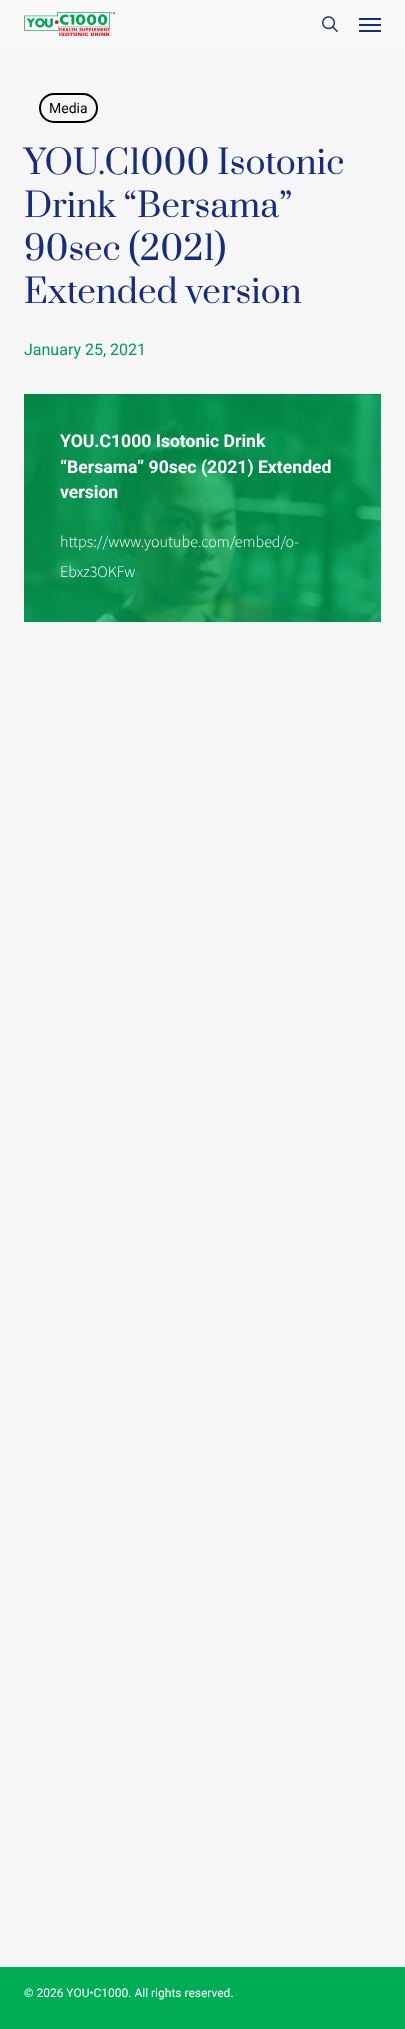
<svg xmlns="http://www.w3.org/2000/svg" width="405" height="2029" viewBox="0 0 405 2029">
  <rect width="100%" height="100%" fill="#f9f9f9"/>
  <image x="24" y="12" width="92" height="24" href="img1.png"/>
  <image x="322" y="16" width="16" height="16" href="img2.png"/>
  <rect x="359" y="18" width="22" height="2" fill="#162c80"/>
  <rect x="359" y="30" width="22" height="2" fill="#162c80"/>
  <rect x="359" y="24" width="22" height="2" fill="#162c80"/>
  <rect x="0" y="48" width="405" height="1919" fill="#f6f6f6"/>
  <rect x="40" y="94" width="57" height="28" rx="14" fill="none" stroke="#000000" stroke-width="2"/>
  <text x="49" y="113" font-family="Roboto" font-size="14" fill="#000000">Media</text>
  <text x="24" y="174" font-family="Prata" font-size="33" fill="#162c80">YOU.C1000 Isotonic</text>
  <text x="24" y="217" font-family="Prata" font-size="33" fill="#162c80">Drink “Bersama”</text>
  <text x="24" y="260" font-family="Prata" font-size="33" fill="#162c80">90sec (2021)</text>
  <text x="24" y="303" font-family="Prata" font-size="33" fill="#162c80">Extended version</text>
  <text x="24" y="355" font-family="Roboto" font-size="16" fill="#009966">January 25, 2021</text>
  <rect x="24" y="394" width="357" height="228" fill="#00ad56"/>
  <image x="24" y="394" width="357" height="228" href="img3.png"/>
  <text x="60" y="447" font-family="Roboto" font-size="17.6" font-weight="bold" fill="#ffffff">YOU.C1000 Isotonic Drink</text>
  <text x="60" y="473" font-family="Roboto" font-size="17.6" font-weight="bold" fill="#ffffff">“Bersama” 90sec (2021) Extended</text>
  <text x="60" y="498" font-family="Roboto" font-size="17.6" font-weight="bold" fill="#ffffff">version</text>
  <text x="60" y="547" font-family="Source Sans Pro" font-size="16" font-weight="300" fill="#ffffff">https://www.youtube.com/embed/o-</text>
  <text x="60" y="577" font-family="Source Sans Pro" font-size="16" font-weight="300" fill="#ffffff">Ebxz3OKFw</text>
  <rect x="0" y="1967" width="405" height="62" fill="#00ad56"/>
  <text x="24" y="1997" font-family="Roboto" font-size="12" fill="#ffffff">© 2026 YOU•C1000. All rights reserved.</text>
</svg>
